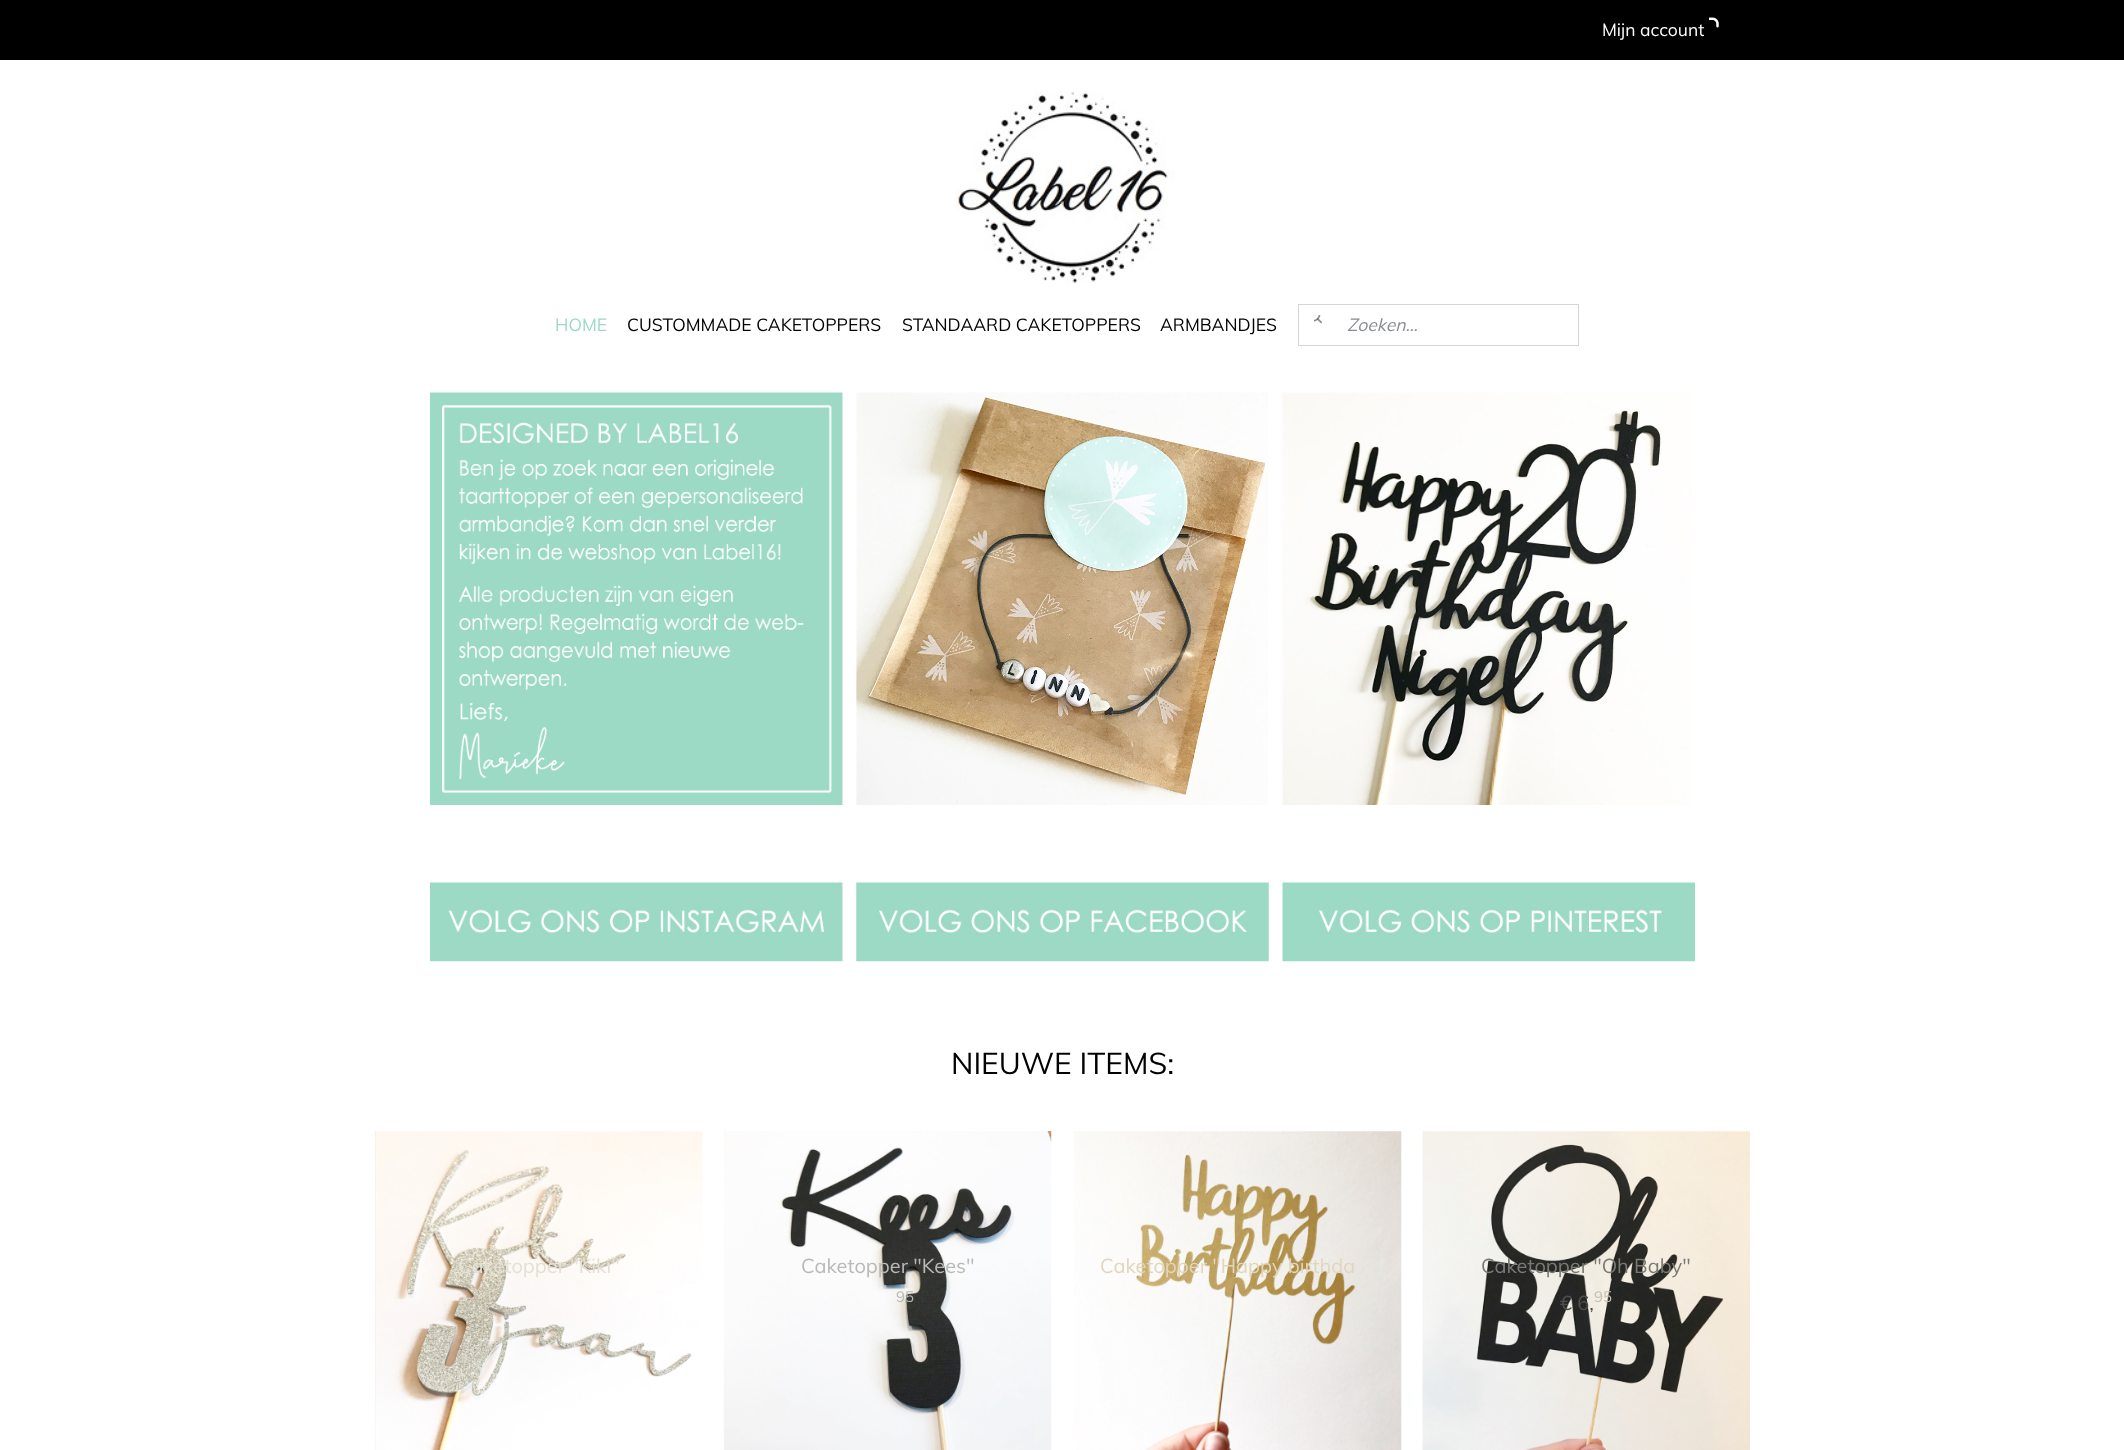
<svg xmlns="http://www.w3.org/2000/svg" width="2124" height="1450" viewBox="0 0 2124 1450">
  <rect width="100%" height="100%" fill="#ffffff"/>
  <rect x="0" y="0" width="2124" height="60" fill="#000000"/>
  <text x="1602" y="36" font-family="Muli" font-size="17.5" fill="#ffffff">Mijn account</text>
  <image x="1709" y="17" width="10" height="11" href="img1.png"/>
  <image x="955" y="91" width="220" height="193" href="img2.png"/>
  <text x="555" y="331" font-family="Muli" font-size="17.5" fill="#9cdac5">HOME</text>
  <text x="627" y="331" font-family="Muli" font-size="17.5" fill="#000000">CUSTOMMADE CAKETOPPERS</text>
  <text x="902" y="331" font-family="Muli" font-size="17.5" fill="#000000">STANDAARD CAKETOPPERS</text>
  <text x="1160" y="331" font-family="Muli" font-size="17.5" fill="#000000">ARMBANDJES</text>
  <rect x="1298.5" y="304.5" width="280" height="41" fill="none" stroke="#d3d5d9"/>
  <image x="1314" y="315" width="8" height="9" href="img3.png"/>
  <text x="1347" y="331" font-family="Muli" font-size="17.5" font-style="italic" fill="#898c91">Zoeken...</text>
  <image x="430" y="392" width="413" height="413" href="img4.png"/>
  <image x="856" y="392" width="412" height="413" href="img5.png"/>
  <image x="1282" y="392" width="410" height="413" href="img6.png"/>
  <image x="430" y="882" width="413" height="80" href="img7.png"/>
  <image x="856" y="882" width="413" height="80" href="img8.png"/>
  <image x="1282" y="882" width="413" height="80" href="img9.png"/>
  <text x="951" y="1074" font-family="Muli" font-size="30" fill="#000000">NIEUWE ITEMS:</text>
  <image x="375" y="1131" width="328" height="319" href="img10.png"/>
  <text x="458" y="1273" font-family="Muli" font-size="20" fill="#e5e0d5">Caketopper "Kiki"</text>
  <image x="723" y="1131" width="329" height="319" href="img11.png"/>
  <text x="801" y="1273" font-family="Muli" font-size="20" fill="#b9b9b7">Caketopper "Kees"</text>
  <text x="896" y="1302" font-family="Muli" font-size="15" fill="#b9b9b7">95</text>
  <image x="1074" y="1131" width="328" height="319" href="img12.png"/>
  <text x="1100" y="1273" font-family="Muli" font-size="20" fill="#e1d6bd">Caketopper "Happy birthda</text>
  <image x="1422" y="1131" width="328" height="319" href="img13.png"/>
  <text x="1481" y="1273" font-family="Muli" font-size="20" fill="#7b7973">Caketopper "Oh Baby"</text>
  <text x="1560" y="1310" font-family="Muli" font-size="20" fill="#4f4f4c">€ 6,</text>
  <text x="1594" y="1302" font-family="Muli" font-size="15" fill="#c4c0b7">95</text>
</svg>
